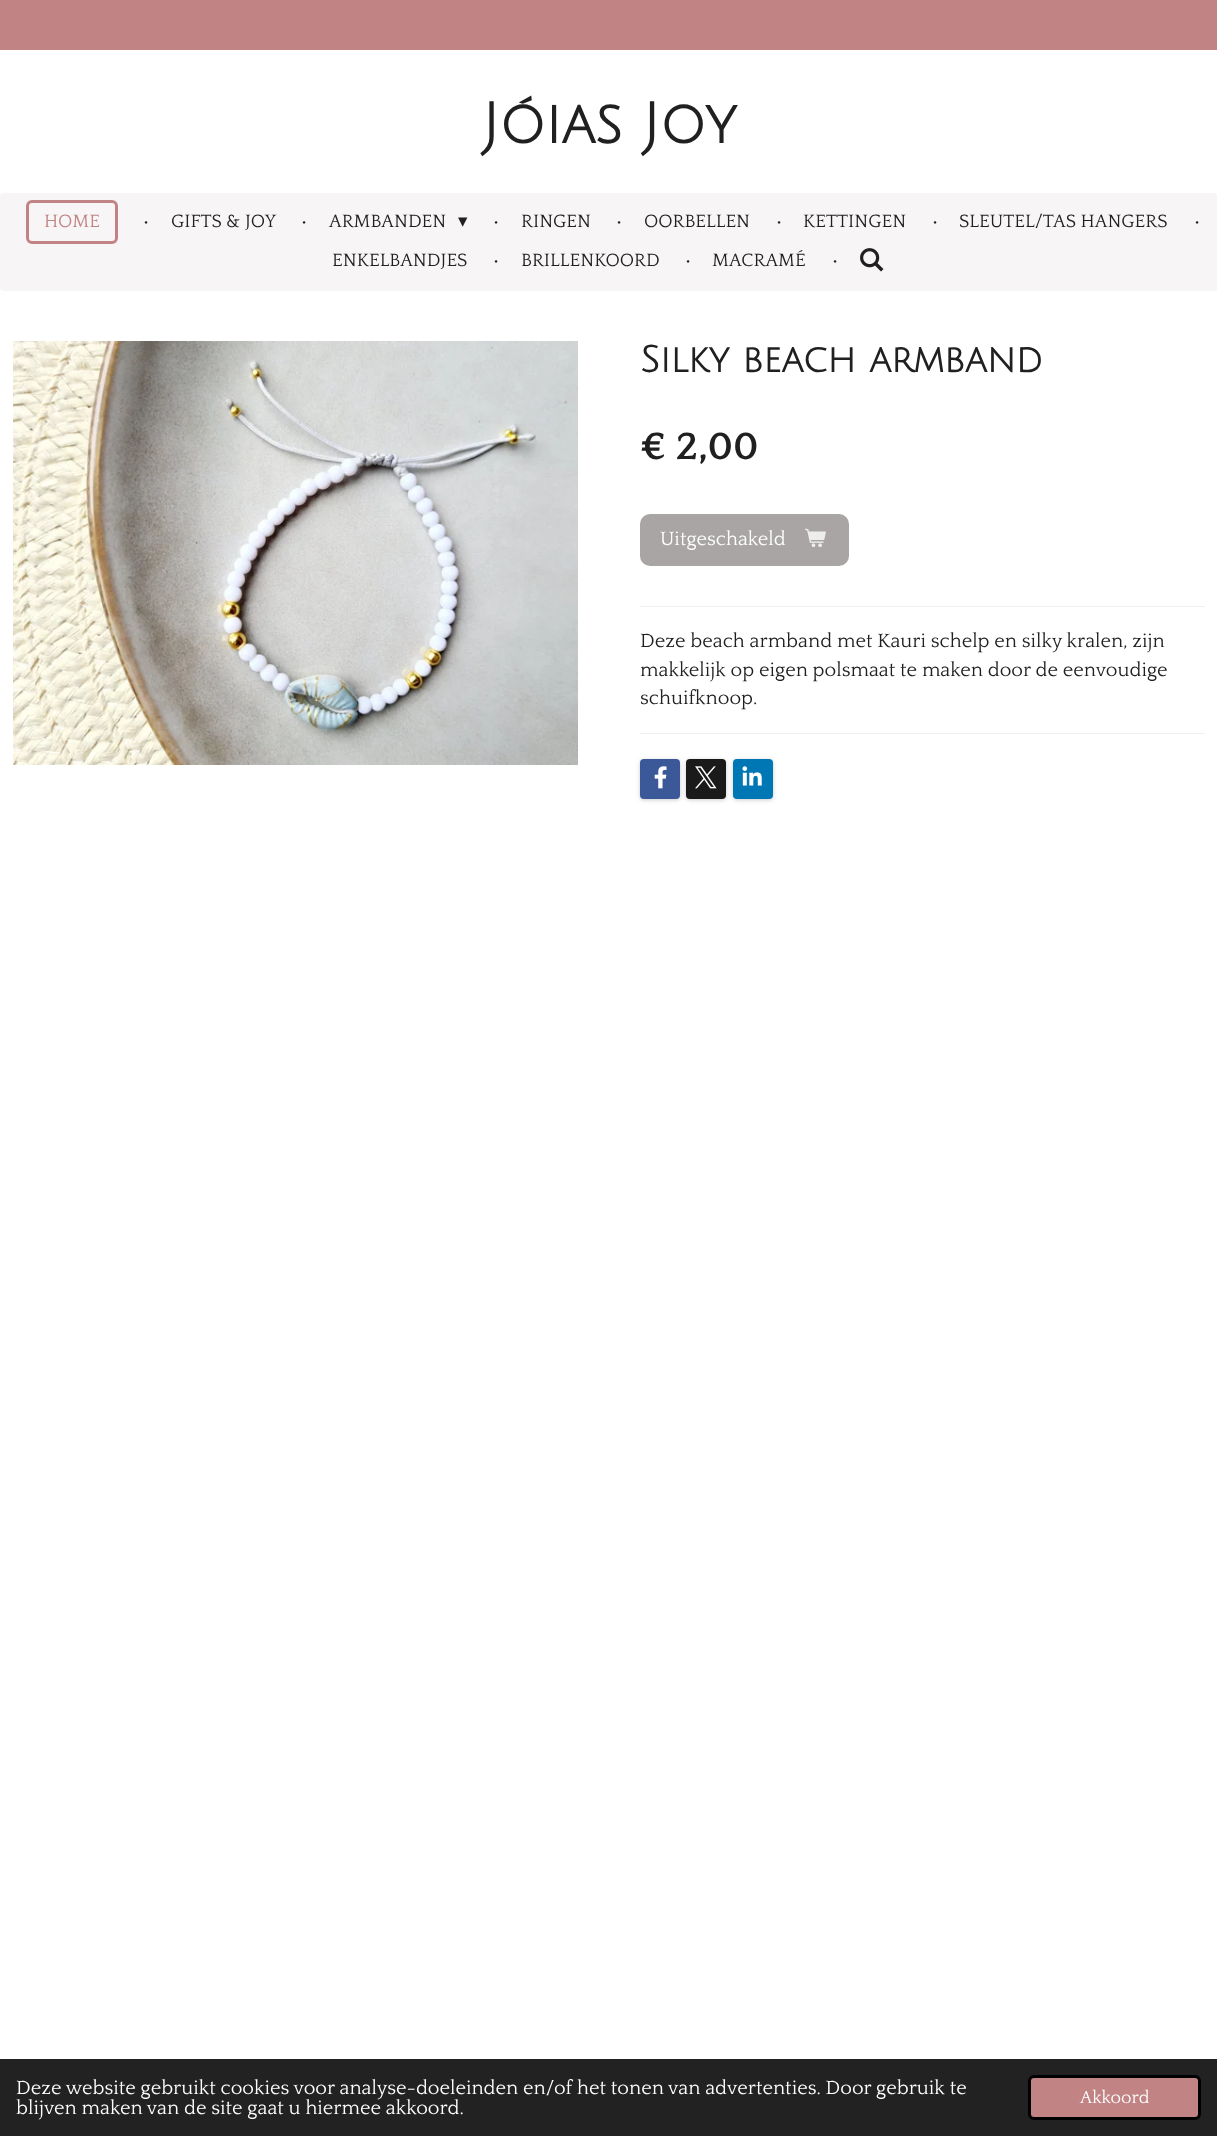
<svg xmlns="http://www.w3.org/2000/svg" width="1217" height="2136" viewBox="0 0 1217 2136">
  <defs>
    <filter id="blur1" x="-50%" y="-200%" width="200%" height="500%"><feGaussianBlur stdDeviation="2"/></filter>
  </defs>
  <rect width="100%" height="100%" fill="#ffffff"/>
  <rect x="0" y="0" width="1217" height="50" fill="#c18383"/>
  <text x="482" y="143" font-family="Julius Sans One" font-size="56.25" font-weight="bold" fill="#202020">Jóias Joy</text>
  <rect x="0" y="193" width="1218" height="98" rx="4" fill="#f7f5f5"/>
  <rect x="27.5" y="201.5" width="89" height="41" rx="4.5" fill="none" stroke="#c18383" stroke-width="3"/>
  <text x="44" y="227" font-family="Quattrocento" font-size="18.75" fill="#c18383">HOME</text>
  <text x="143" y="227" font-family="Quattrocento" font-size="18.75" fill="#202020">•</text>
  <text x="171" y="227" font-family="Quattrocento" font-size="18.75" fill="#202020">GIFTS &amp; JOY</text>
  <text x="301" y="227" font-family="Quattrocento" font-size="18.75" fill="#202020">•</text>
  <text x="329" y="227" font-family="Quattrocento" font-size="18.75" fill="#202020">ARMBANDEN</text>
  <text x="458" y="227" font-family="DejaVu Sans" font-size="18.75" fill="#202020">▾</text>
  <text x="493" y="227" font-family="Quattrocento" font-size="18.75" fill="#202020">•</text>
  <text x="521" y="227" font-family="Quattrocento" font-size="18.75" fill="#202020">RINGEN</text>
  <text x="616" y="227" font-family="Quattrocento" font-size="18.75" fill="#202020">•</text>
  <text x="644" y="227" font-family="Quattrocento" font-size="18.75" fill="#202020">OORBELLEN</text>
  <text x="776" y="227" font-family="Quattrocento" font-size="18.75" fill="#202020">•</text>
  <text x="803" y="227" font-family="Quattrocento" font-size="18.75" fill="#202020">KETTINGEN</text>
  <text x="932" y="227" font-family="Quattrocento" font-size="18.75" fill="#202020">•</text>
  <text x="959" y="227" font-family="Quattrocento" font-size="18.75" fill="#202020">SLEUTEL/TAS HANGERS</text>
  <text x="1194" y="227" font-family="Quattrocento" font-size="18.75" fill="#202020">•</text>
  <text x="332" y="266" font-family="Quattrocento" font-size="18.75" fill="#202020">ENKELBANDJES</text>
  <text x="493" y="266" font-family="Quattrocento" font-size="18.75" fill="#202020">•</text>
  <text x="521" y="266" font-family="Quattrocento" font-size="18.75" fill="#202020">BRILLENKOORD</text>
  <text x="685" y="266" font-family="Quattrocento" font-size="18.75" fill="#202020">•</text>
  <text x="712" y="266" font-family="Quattrocento" font-size="18.75" fill="#202020">MACRAMÉ</text>
  <text x="832" y="266" font-family="Quattrocento" font-size="18.75" fill="#202020">•</text>
  <image x="860" y="248" width="24" height="24" href="img1.png"/>
  <image x="13" y="341" width="565" height="424" href="img2.png"/>
  <text x="640" y="372" font-family="Julius Sans One" font-size="36.6" font-weight="bold" fill="#202020">Silky beach armband</text>
  <text x="640" y="459" font-family="Quattrocento" font-size="40" font-weight="bold" fill="#202020">€ 2,00</text>
  <rect x="640" y="514" width="209" height="52" rx="10" fill="#aaa5a5"/>
  <text x="660" y="545" font-family="Quattrocento" font-size="20" fill="#ffffff">Uitgeschakeld</text>
  <image x="805" y="528" width="21" height="20" href="img3.png"/>
  <rect x="640" y="606" width="565" height="1" fill="#efefef"/>
  <text x="640" y="647" font-family="Quattrocento" font-size="20" fill="#202020">Deze beach armband met Kauri schelp en silky kralen, zijn</text>
  <text x="640" y="676" font-family="Quattrocento" font-size="20" fill="#202020">makkelijk op eigen polsmaat te maken door de eenvoudige</text>
  <text x="640" y="704" font-family="Quattrocento" font-size="20" fill="#202020">schuifknoop.</text>
  <rect x="640" y="733" width="565" height="1" fill="#efefef"/>
  <rect x="640" y="760" width="40" height="40" rx="4" fill="#000000" fill-opacity="0.2" filter="url(#blur1)"/>
  <rect x="640" y="759" width="40" height="40" rx="4" fill="#3b5998"/>
  <image x="654" y="766" width="13" height="23" href="img4.png"/>
  <rect x="686" y="760" width="40" height="40" rx="4" fill="#000000" fill-opacity="0.2" filter="url(#blur1)"/>
  <rect x="686" y="759" width="40" height="40" rx="4" fill="#1a1a1a"/>
  <image x="695" y="766" width="22" height="23" href="img5.png"/>
  <rect x="733" y="760" width="40" height="40" rx="4" fill="#000000" fill-opacity="0.2" filter="url(#blur1)"/>
  <rect x="733" y="759" width="40" height="40" rx="4" fill="#0077b5"/>
  <image x="742" y="766" width="20" height="20" href="img6.png"/>
  <rect x="0" y="2059" width="1217" height="77" fill="#222222"/>
  <text x="16" y="2094" font-family="Quattrocento" font-size="20" fill="#ffffff">Deze website gebruikt cookies voor analyse-doeleinden en/of het tonen van advertenties. Door gebruik te</text>
  <text x="16" y="2114" font-family="Quattrocento" font-size="20" fill="#ffffff">blijven maken van de site gaat u hiermee akkoord.</text>
  <rect x="1029.5" y="2076.5" width="170" height="42" rx="4.5" fill="#c18383" stroke="#000000" stroke-width="3"/>
  <text x="1080" y="2103" font-family="Quattrocento" font-size="18" fill="#ffffff">Akkoord</text>
</svg>
